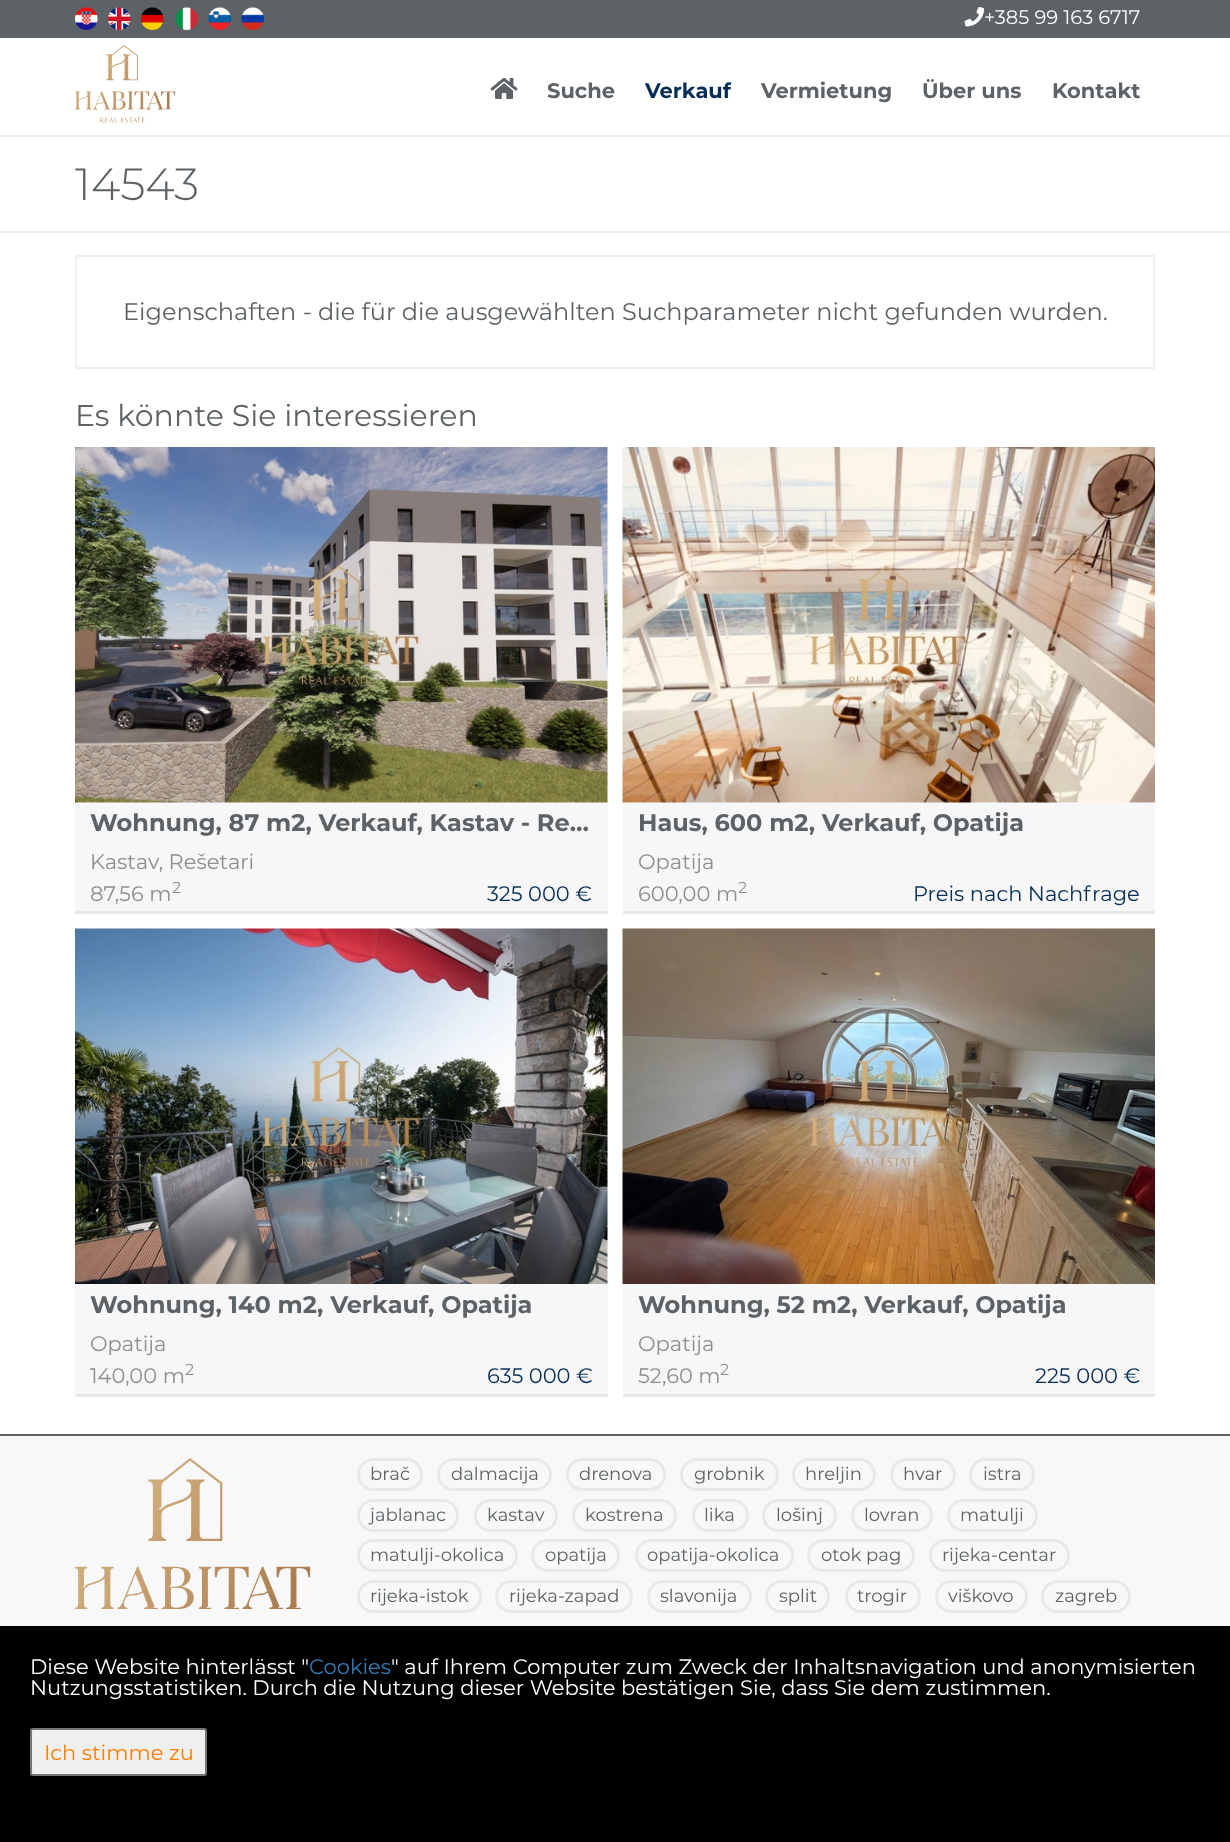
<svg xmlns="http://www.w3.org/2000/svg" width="1230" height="1842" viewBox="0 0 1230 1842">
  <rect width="100%" height="100%" fill="#ffffff"/>
  <rect x="0" y="0" width="1230" height="38" fill="#5c6266"/>
  <image x="75" y="7" width="23" height="23" href="img1.png"/>
  <image x="108" y="7" width="23" height="23" href="img2.png"/>
  <image x="141" y="7" width="23" height="23" href="img3.png"/>
  <image x="175" y="7" width="23" height="23" href="img4.png"/>
  <image x="208" y="7" width="23" height="23" href="img5.png"/>
  <image x="241" y="7" width="23" height="23" href="img6.png"/>
  <image x="964" y="7" width="20" height="20" href="img7.png"/>
  <text x="984" y="24" font-family="Montserrat" font-size="19.5" fill="#ffffff">+385 99 163 6717</text>
  <image x="75" y="45" width="101" height="78" href="img8.png"/>
  <image x="490" y="78" width="28" height="21" href="img9.png"/>
  <text x="547" y="98" font-family="Montserrat" font-size="21" font-weight="bold" fill="#5c6266">Suche</text>
  <text x="645" y="98" font-family="Montserrat" font-size="21" font-weight="bold" fill="#062e56">Verkauf</text>
  <text x="761" y="98" font-family="Montserrat" font-size="21" font-weight="bold" fill="#5c6266">Vermietung</text>
  <text x="922" y="98" font-family="Montserrat" font-size="21" font-weight="bold" fill="#5c6266">Über uns</text>
  <text x="1052" y="98" font-family="Montserrat" font-size="21" font-weight="bold" fill="#5c6266">Kontakt</text>
  <rect x="0" y="135" width="1230" height="2" fill="#efeff0"/>
  <rect x="0" y="231" width="1230" height="2" fill="#efeff0"/>
  <text x="75" y="200" font-family="Montserrat" font-size="45" font-weight="300" fill="#5c6266">14543</text>
  <rect x="76" y="256" width="1078" height="112" fill="none" stroke="#efeff0" stroke-width="2"/>
  <text x="123" y="320" font-family="Montserrat" font-size="24" fill="#5c6266">Eigenschaften - die für die ausgewählten Suchparameter nicht gefunden wurden.</text>
  <text x="75" y="426" font-family="Montserrat" font-size="30" fill="#5c6266">Es könnte Sie interessieren</text>
  <image x="75" y="447" width="533" height="356" href="img10.png"/>
  <rect x="75" y="803" width="533" height="108" fill="#f7f7f7"/>
  <rect x="75" y="911" width="533" height="3" fill="#e7e8e8"/>
  <text x="90" y="831" font-family="Montserrat" font-size="24" font-weight="bold" fill="#5c6266">Wohnung, 87 m2, Verkauf, Kastav - Re…</text>
  <text x="90" y="869" font-family="Montserrat" font-size="21" fill="#8b8f92">Kastav, Rešetari</text>
  <text x="90" y="901" font-family="Montserrat" font-size="21" fill="#8b8f92">87,56 m</text>
  <text x="172" y="893" font-family="Montserrat" font-size="16" fill="#8b8f92">2</text>
  <text x="487" y="901" font-family="Montserrat" font-size="21" fill="#062e56">325 000 €</text>
  <image x="622" y="447" width="533" height="356" href="img11.png"/>
  <rect x="623" y="803" width="532" height="108" fill="#f7f7f7"/>
  <rect x="623" y="911" width="532" height="3" fill="#e7e8e8"/>
  <text x="638" y="831" font-family="Montserrat" font-size="24" font-weight="bold" fill="#5c6266">Haus, 600 m2, Verkauf, Opatija</text>
  <text x="638" y="869" font-family="Montserrat" font-size="21" fill="#8b8f92">Opatija</text>
  <text x="638" y="901" font-family="Montserrat" font-size="21" fill="#8b8f92">600,00 m</text>
  <text x="738" y="893" font-family="Montserrat" font-size="16" fill="#8b8f92">2</text>
  <text x="913" y="901" font-family="Montserrat" font-size="21" fill="#062e56">Preis nach Nachfrage</text>
  <image x="75" y="928" width="533" height="356" href="img12.png"/>
  <rect x="75" y="1284" width="533" height="110" fill="#f7f7f7"/>
  <rect x="75" y="1394" width="533" height="3" fill="#e7e8e8"/>
  <text x="90" y="1313" font-family="Montserrat" font-size="24" font-weight="bold" fill="#5c6266">Wohnung, 140 m2, Verkauf, Opatija</text>
  <text x="90" y="1351" font-family="Montserrat" font-size="21" fill="#8b8f92">Opatija</text>
  <text x="90" y="1383" font-family="Montserrat" font-size="21" fill="#8b8f92">140,00 m</text>
  <text x="185" y="1375" font-family="Montserrat" font-size="16" fill="#8b8f92">2</text>
  <text x="487" y="1383" font-family="Montserrat" font-size="21" fill="#062e56">635 000 €</text>
  <image x="622" y="928" width="533" height="356" href="img13.png"/>
  <rect x="623" y="1284" width="532" height="110" fill="#f7f7f7"/>
  <rect x="623" y="1394" width="532" height="3" fill="#e7e8e8"/>
  <text x="638" y="1313" font-family="Montserrat" font-size="24" font-weight="bold" fill="#5c6266">Wohnung, 52 m2, Verkauf, Opatija</text>
  <text x="638" y="1351" font-family="Montserrat" font-size="21" fill="#8b8f92">Opatija</text>
  <text x="638" y="1383" font-family="Montserrat" font-size="21" fill="#8b8f92">52,60 m</text>
  <text x="720" y="1375" font-family="Montserrat" font-size="16" fill="#8b8f92">2</text>
  <text x="1035" y="1383" font-family="Montserrat" font-size="21" fill="#062e56">225 000 €</text>
  <rect x="0" y="1436" width="1230" height="190" fill="#f8f8f8"/>
  <rect x="0" y="1434" width="1230" height="2" fill="#5c6266"/>
  <image x="75" y="1458" width="236" height="151" href="img14.png"/>
  <rect x="358.5" y="1459.5" width="63" height="30" rx="15" fill="none" stroke="#e8e9e9" stroke-width="3"/>
  <text x="370" y="1480" font-family="Montserrat" font-size="18" fill="#5c6266">brač</text>
  <rect x="438.5" y="1459.5" width="112" height="30" rx="15" fill="none" stroke="#e8e9e9" stroke-width="3"/>
  <text x="451" y="1480" font-family="Montserrat" font-size="18" fill="#5c6266">dalmacija</text>
  <rect x="567.5" y="1459.5" width="97" height="30" rx="15" fill="none" stroke="#e8e9e9" stroke-width="3"/>
  <text x="579" y="1480" font-family="Montserrat" font-size="18" fill="#5c6266">drenova</text>
  <rect x="681.5" y="1459.5" width="96" height="30" rx="15" fill="none" stroke="#e8e9e9" stroke-width="3"/>
  <text x="694" y="1480" font-family="Montserrat" font-size="18" fill="#5c6266">grobnik</text>
  <rect x="793.5" y="1459.5" width="81" height="30" rx="15" fill="none" stroke="#e8e9e9" stroke-width="3"/>
  <text x="805" y="1480" font-family="Montserrat" font-size="18" fill="#5c6266">hreljin</text>
  <rect x="891.5" y="1459.5" width="63" height="30" rx="15" fill="none" stroke="#e8e9e9" stroke-width="3"/>
  <text x="903" y="1480" font-family="Montserrat" font-size="18" fill="#5c6266">hvar</text>
  <rect x="970.5" y="1459.5" width="63" height="30" rx="15" fill="none" stroke="#e8e9e9" stroke-width="3"/>
  <text x="983" y="1480" font-family="Montserrat" font-size="18" fill="#5c6266">istra</text>
  <rect x="358.5" y="1500.5" width="99" height="30" rx="15" fill="none" stroke="#e8e9e9" stroke-width="3"/>
  <text x="370" y="1521" font-family="Montserrat" font-size="18" fill="#5c6266">jablanac</text>
  <rect x="475.5" y="1500.5" width="81" height="30" rx="15" fill="none" stroke="#e8e9e9" stroke-width="3"/>
  <text x="487" y="1521" font-family="Montserrat" font-size="18" fill="#5c6266">kastav</text>
  <rect x="573.5" y="1500.5" width="102" height="30" rx="15" fill="none" stroke="#e8e9e9" stroke-width="3"/>
  <text x="585" y="1521" font-family="Montserrat" font-size="18" fill="#5c6266">kostrena</text>
  <rect x="693.5" y="1500.5" width="54" height="30" rx="15" fill="none" stroke="#e8e9e9" stroke-width="3"/>
  <text x="704" y="1521" font-family="Montserrat" font-size="18" fill="#5c6266">lika</text>
  <rect x="763.5" y="1500.5" width="72" height="30" rx="15" fill="none" stroke="#e8e9e9" stroke-width="3"/>
  <text x="776" y="1521" font-family="Montserrat" font-size="18" fill="#5c6266">lošinj</text>
  <rect x="852.5" y="1500.5" width="79" height="30" rx="15" fill="none" stroke="#e8e9e9" stroke-width="3"/>
  <text x="864" y="1521" font-family="Montserrat" font-size="18" fill="#5c6266">lovran</text>
  <rect x="948.5" y="1500.5" width="88" height="30" rx="15" fill="none" stroke="#e8e9e9" stroke-width="3"/>
  <text x="960" y="1521" font-family="Montserrat" font-size="18" fill="#5c6266">matulji</text>
  <rect x="358.5" y="1540.5" width="158" height="30" rx="15" fill="none" stroke="#e8e9e9" stroke-width="3"/>
  <text x="370" y="1561" font-family="Montserrat" font-size="18" fill="#5c6266">matulji-okolica</text>
  <rect x="532.5" y="1540.5" width="86" height="30" rx="15" fill="none" stroke="#e8e9e9" stroke-width="3"/>
  <text x="545" y="1561" font-family="Montserrat" font-size="18" fill="#5c6266">opatija</text>
  <rect x="636.5" y="1540.5" width="156" height="30" rx="15" fill="none" stroke="#e8e9e9" stroke-width="3"/>
  <text x="647" y="1561" font-family="Montserrat" font-size="18" fill="#5c6266">opatija-okolica</text>
  <rect x="808.5" y="1540.5" width="105" height="30" rx="15" fill="none" stroke="#e8e9e9" stroke-width="3"/>
  <text x="821" y="1561" font-family="Montserrat" font-size="18" fill="#5c6266">otok pag</text>
  <rect x="930.5" y="1540.5" width="138" height="30" rx="15" fill="none" stroke="#e8e9e9" stroke-width="3"/>
  <text x="942" y="1561" font-family="Montserrat" font-size="18" fill="#5c6266">rijeka-centar</text>
  <rect x="358.5" y="1581.5" width="122" height="30" rx="15" fill="none" stroke="#e8e9e9" stroke-width="3"/>
  <text x="370" y="1602" font-family="Montserrat" font-size="18" fill="#5c6266">rijeka-istok</text>
  <rect x="496.5" y="1581.5" width="135" height="30" rx="15" fill="none" stroke="#e8e9e9" stroke-width="3"/>
  <text x="509" y="1602" font-family="Montserrat" font-size="18" fill="#5c6266">rijeka-zapad</text>
  <rect x="648.5" y="1581.5" width="102" height="30" rx="15" fill="none" stroke="#e8e9e9" stroke-width="3"/>
  <text x="660" y="1602" font-family="Montserrat" font-size="18" fill="#5c6266">slavonija</text>
  <rect x="766.5" y="1581.5" width="62" height="30" rx="15" fill="none" stroke="#e8e9e9" stroke-width="3"/>
  <text x="779" y="1602" font-family="Montserrat" font-size="18" fill="#5c6266">split</text>
  <rect x="846.5" y="1581.5" width="73" height="30" rx="15" fill="none" stroke="#e8e9e9" stroke-width="3"/>
  <text x="857" y="1602" font-family="Montserrat" font-size="18" fill="#5c6266">trogir</text>
  <rect x="936.5" y="1581.5" width="90" height="30" rx="15" fill="none" stroke="#e8e9e9" stroke-width="3"/>
  <text x="948" y="1602" font-family="Montserrat" font-size="18" fill="#5c6266">viškovo</text>
  <rect x="1042.5" y="1581.5" width="87" height="30" rx="15" fill="none" stroke="#e8e9e9" stroke-width="3"/>
  <text x="1055" y="1602" font-family="Montserrat" font-size="18" fill="#5c6266">zagreb</text>
  <rect x="0" y="1626" width="1230" height="216" fill="#000000"/>
  <text x="30" y="1674" font-family="Montserrat" font-size="21" fill="#ffffff">Diese Website hinterlässt "</text>
  <text x="309" y="1674" font-family="Montserrat" font-size="21" fill="#337ab7">Cookies</text>
  <text x="391" y="1674" font-family="Montserrat" font-size="21" fill="#ffffff">" auf Ihrem Computer zum Zweck der Inhaltsnavigation und anonymisierten</text>
  <text x="30" y="1695" font-family="Montserrat" font-size="21" fill="#ffffff">Nutzungsstatistiken. Durch die Nutzung dieser Website bestätigen Sie, dass Sie dem zustimmen.</text>
  <rect x="31" y="1729" width="175" height="46" rx="2" fill="#efefef" stroke="#767676" stroke-width="2"/>
  <text x="44" y="1760" font-family="Montserrat" font-size="21" fill="#ff7e00">Ich stimme zu</text>
</svg>
